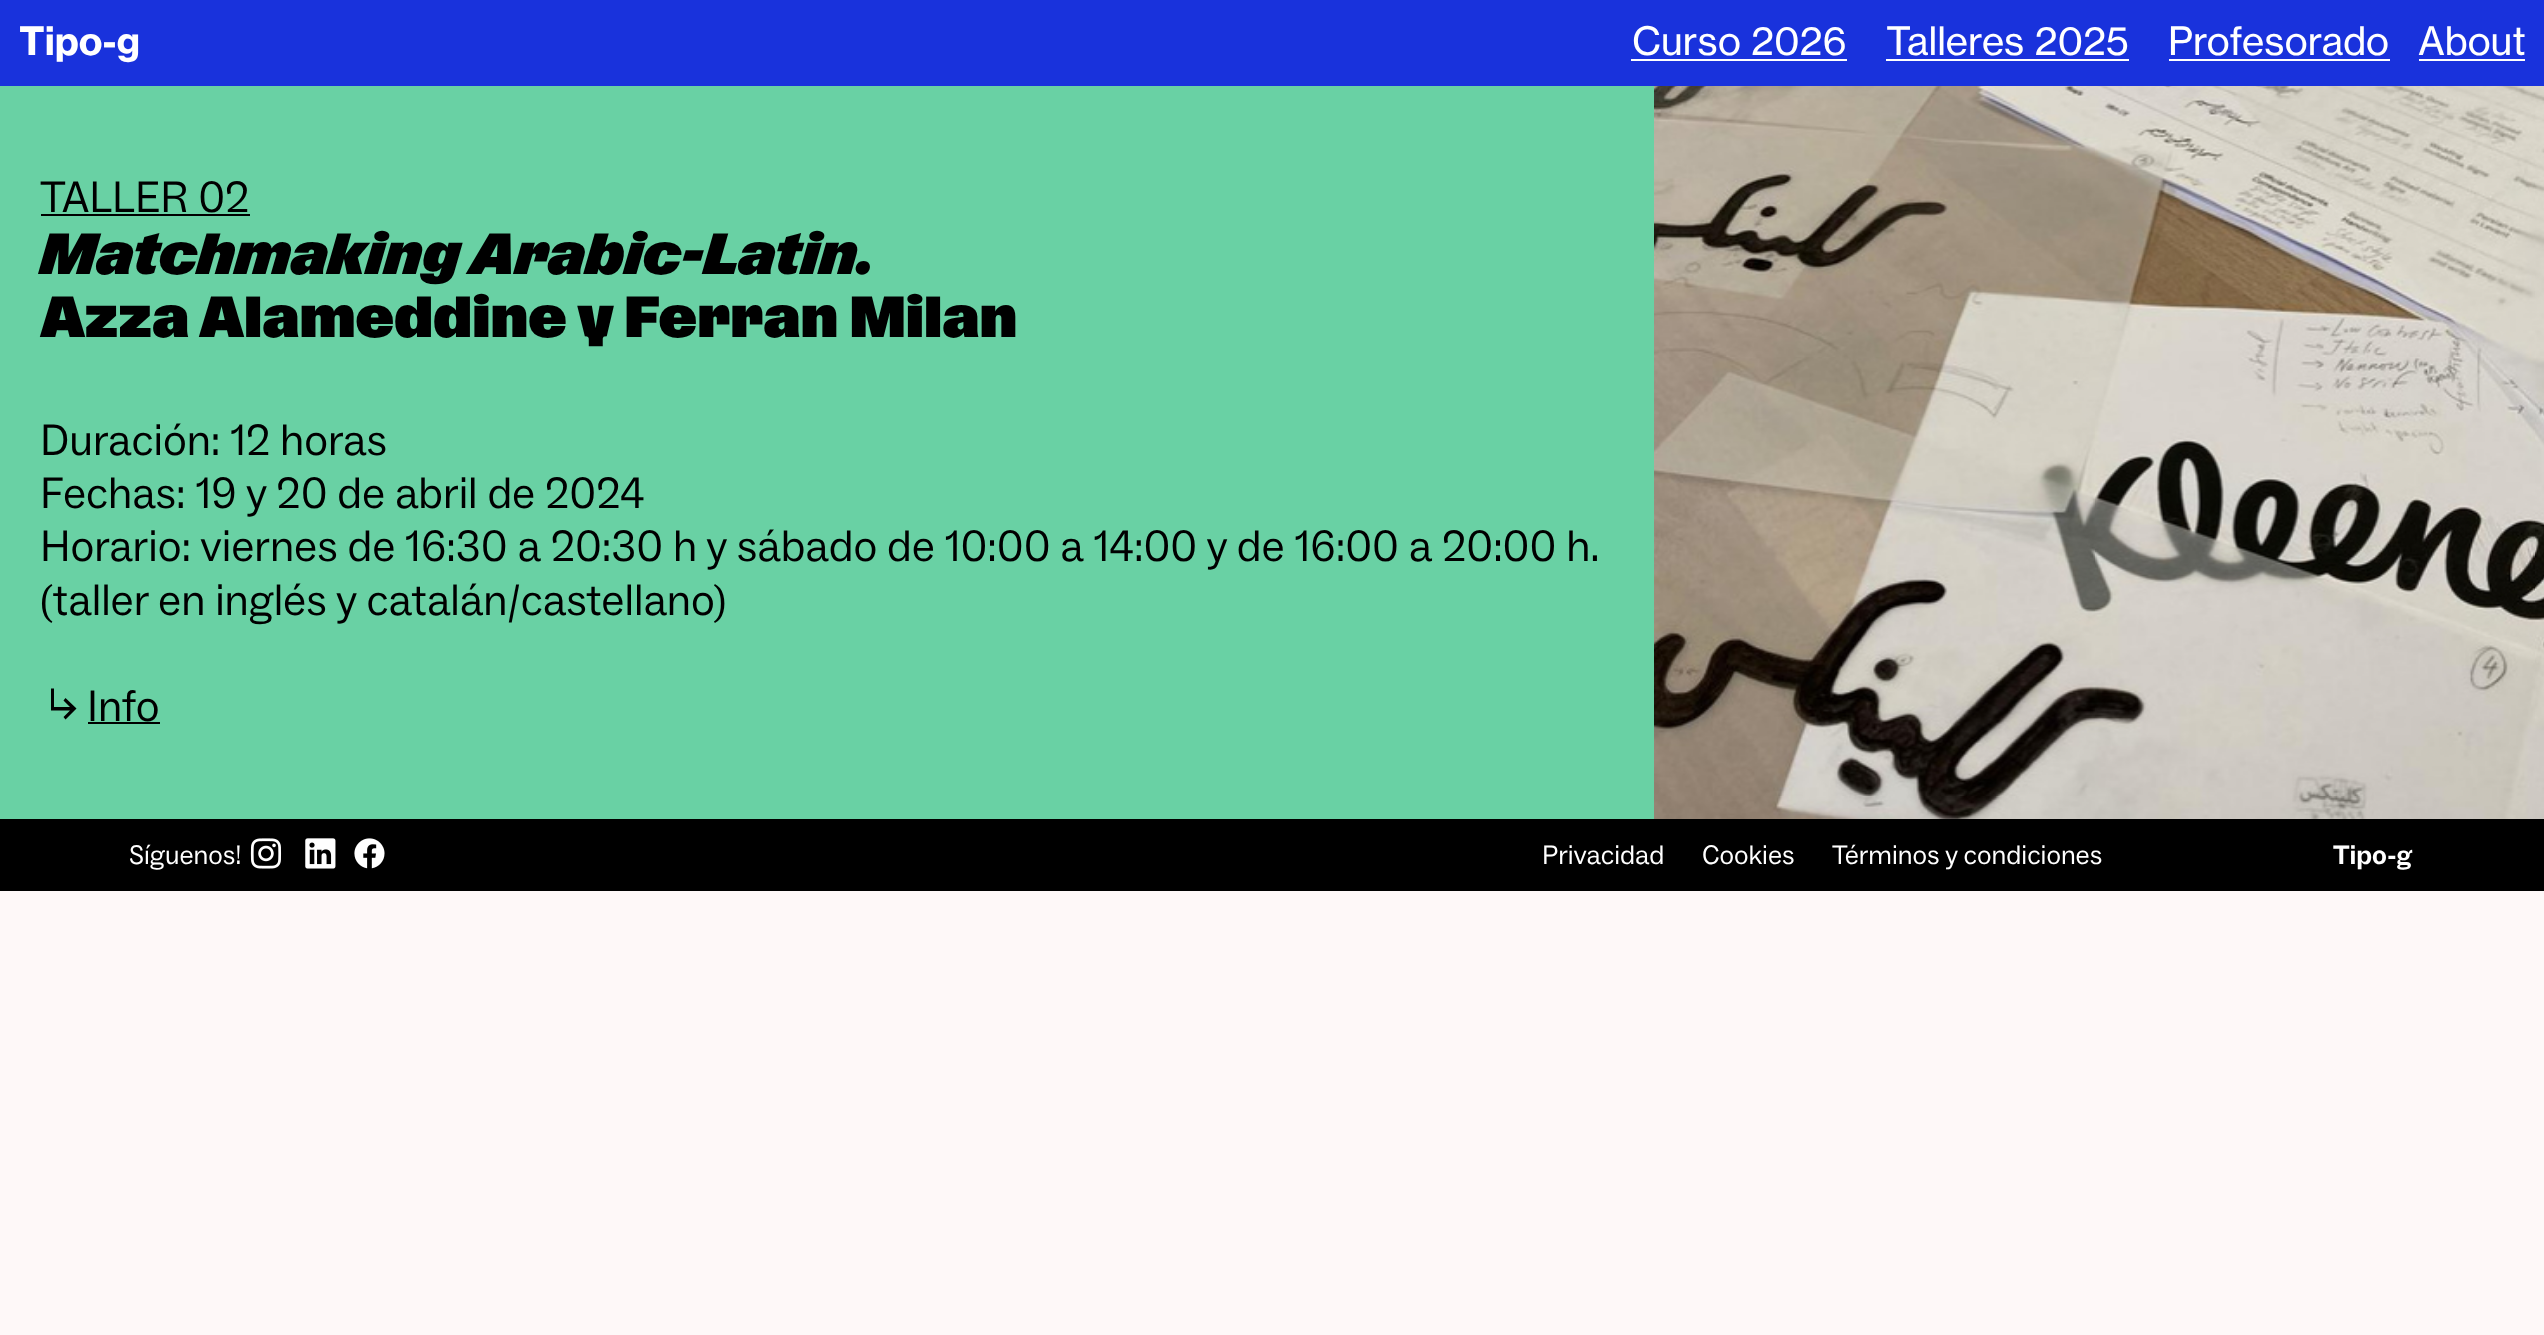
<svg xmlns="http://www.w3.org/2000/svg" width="2544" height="1335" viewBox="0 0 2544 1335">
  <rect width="100%" height="100%" fill="#fef8f8"/>
  <rect x="0" y="0" width="2544" height="86" fill="#1932dc"/>
  <text x="19" y="55" font-family="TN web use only" font-size="38.5" font-weight="bold" fill="#ffffff">Tipo-g</text>
  <text x="1632" y="55" font-family="TN web use only" font-size="38.5" fill="#ffffff">Curso 2026</text>
  <rect x="1631" y="59" width="216" height="2" fill="#ffffff"/>
  <text x="1886" y="55" font-family="TN web use only" font-size="38.5" fill="#ffffff">Talleres 2025</text>
  <rect x="1886" y="59" width="243" height="2" fill="#ffffff"/>
  <text x="2168" y="55" font-family="TN web use only" font-size="38.5" fill="#ffffff">Profesorado</text>
  <rect x="2169" y="59" width="221" height="2" fill="#ffffff"/>
  <text x="2418" y="55" font-family="TN web use only" font-size="38.5" fill="#ffffff">About</text>
  <rect x="2419" y="59" width="106" height="2" fill="#ffffff"/>
  <rect x="0" y="86" width="1654" height="733" fill="#69d1a4"/>
  <image x="1654" y="86" width="890" height="733" href="img1.png"/>
  <text x="40" y="212" font-family="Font" font-size="44.25" font-weight="300" fill="#000000">TALLER 02</text>
  <rect x="41" y="214" width="209" height="2" fill="#000000"/>
  <text x="40" y="274" font-family="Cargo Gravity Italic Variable" font-size="57.75" font-weight="900" font-style="italic" fill="#000000">Matchmaking Arabic-Latin.</text>
  <text x="40" y="337" font-family="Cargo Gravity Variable" font-size="57.75" font-weight="900" fill="#000000">Azza Alameddine y Ferran Milan</text>
  <text x="40" y="455" font-family="Font" font-size="44.25" font-weight="300" fill="#000000">Duración: 12 horas</text>
  <text x="40" y="508" font-family="Font" font-size="44.25" font-weight="300" fill="#000000">Fechas: 19 y 20 de abril de 2024</text>
  <text x="40" y="561" font-family="Font" font-size="44.25" font-weight="300" fill="#000000">Horario: viernes de 16:30 a 20:30 h y sábado de 10:00 a 14:00 y de 16:00 a 20:00 h.</text>
  <text x="40" y="615" font-family="Font" font-size="44.25" font-weight="300" fill="#000000">(taller en inglés y catalán/castellano)</text>
  <text x="87" y="721" font-family="Font" font-size="44.25" font-weight="300" fill="#000000">Info</text>
  <path d="M76.5 708.5L65.5 698L63.5 700.5L70 707H54V688.5H51V710.5H70L63.5 717L65.5 719.5Z" fill="#000000"/>
  <rect x="88" y="722" width="72" height="2" fill="#000000"/>
  <rect x="0" y="819" width="2544" height="72" fill="#000000"/>
  <text x="129" y="864" font-family="Font" font-size="27" font-weight="300" fill="#ffffff">Síguenos!</text>
  <image x="250" y="838" width="32" height="31" href="img2.png"/>
  <image x="305" y="838" width="31" height="31" href="img3.png"/>
  <image x="354" y="838" width="31" height="31" href="img4.png"/>
  <text x="1542" y="864" font-family="Font" font-size="27" font-weight="300" fill="#ffffff">Privacidad</text>
  <text x="1702" y="864" font-family="Font" font-size="27" font-weight="300" fill="#ffffff">Cookies</text>
  <text x="1832" y="864" font-family="Font" font-size="27" font-weight="300" fill="#ffffff">Términos y condiciones</text>
  <text x="2333" y="864" font-family="Font" font-size="27" font-weight="bold" fill="#ffffff">Tipo-g</text>
</svg>
